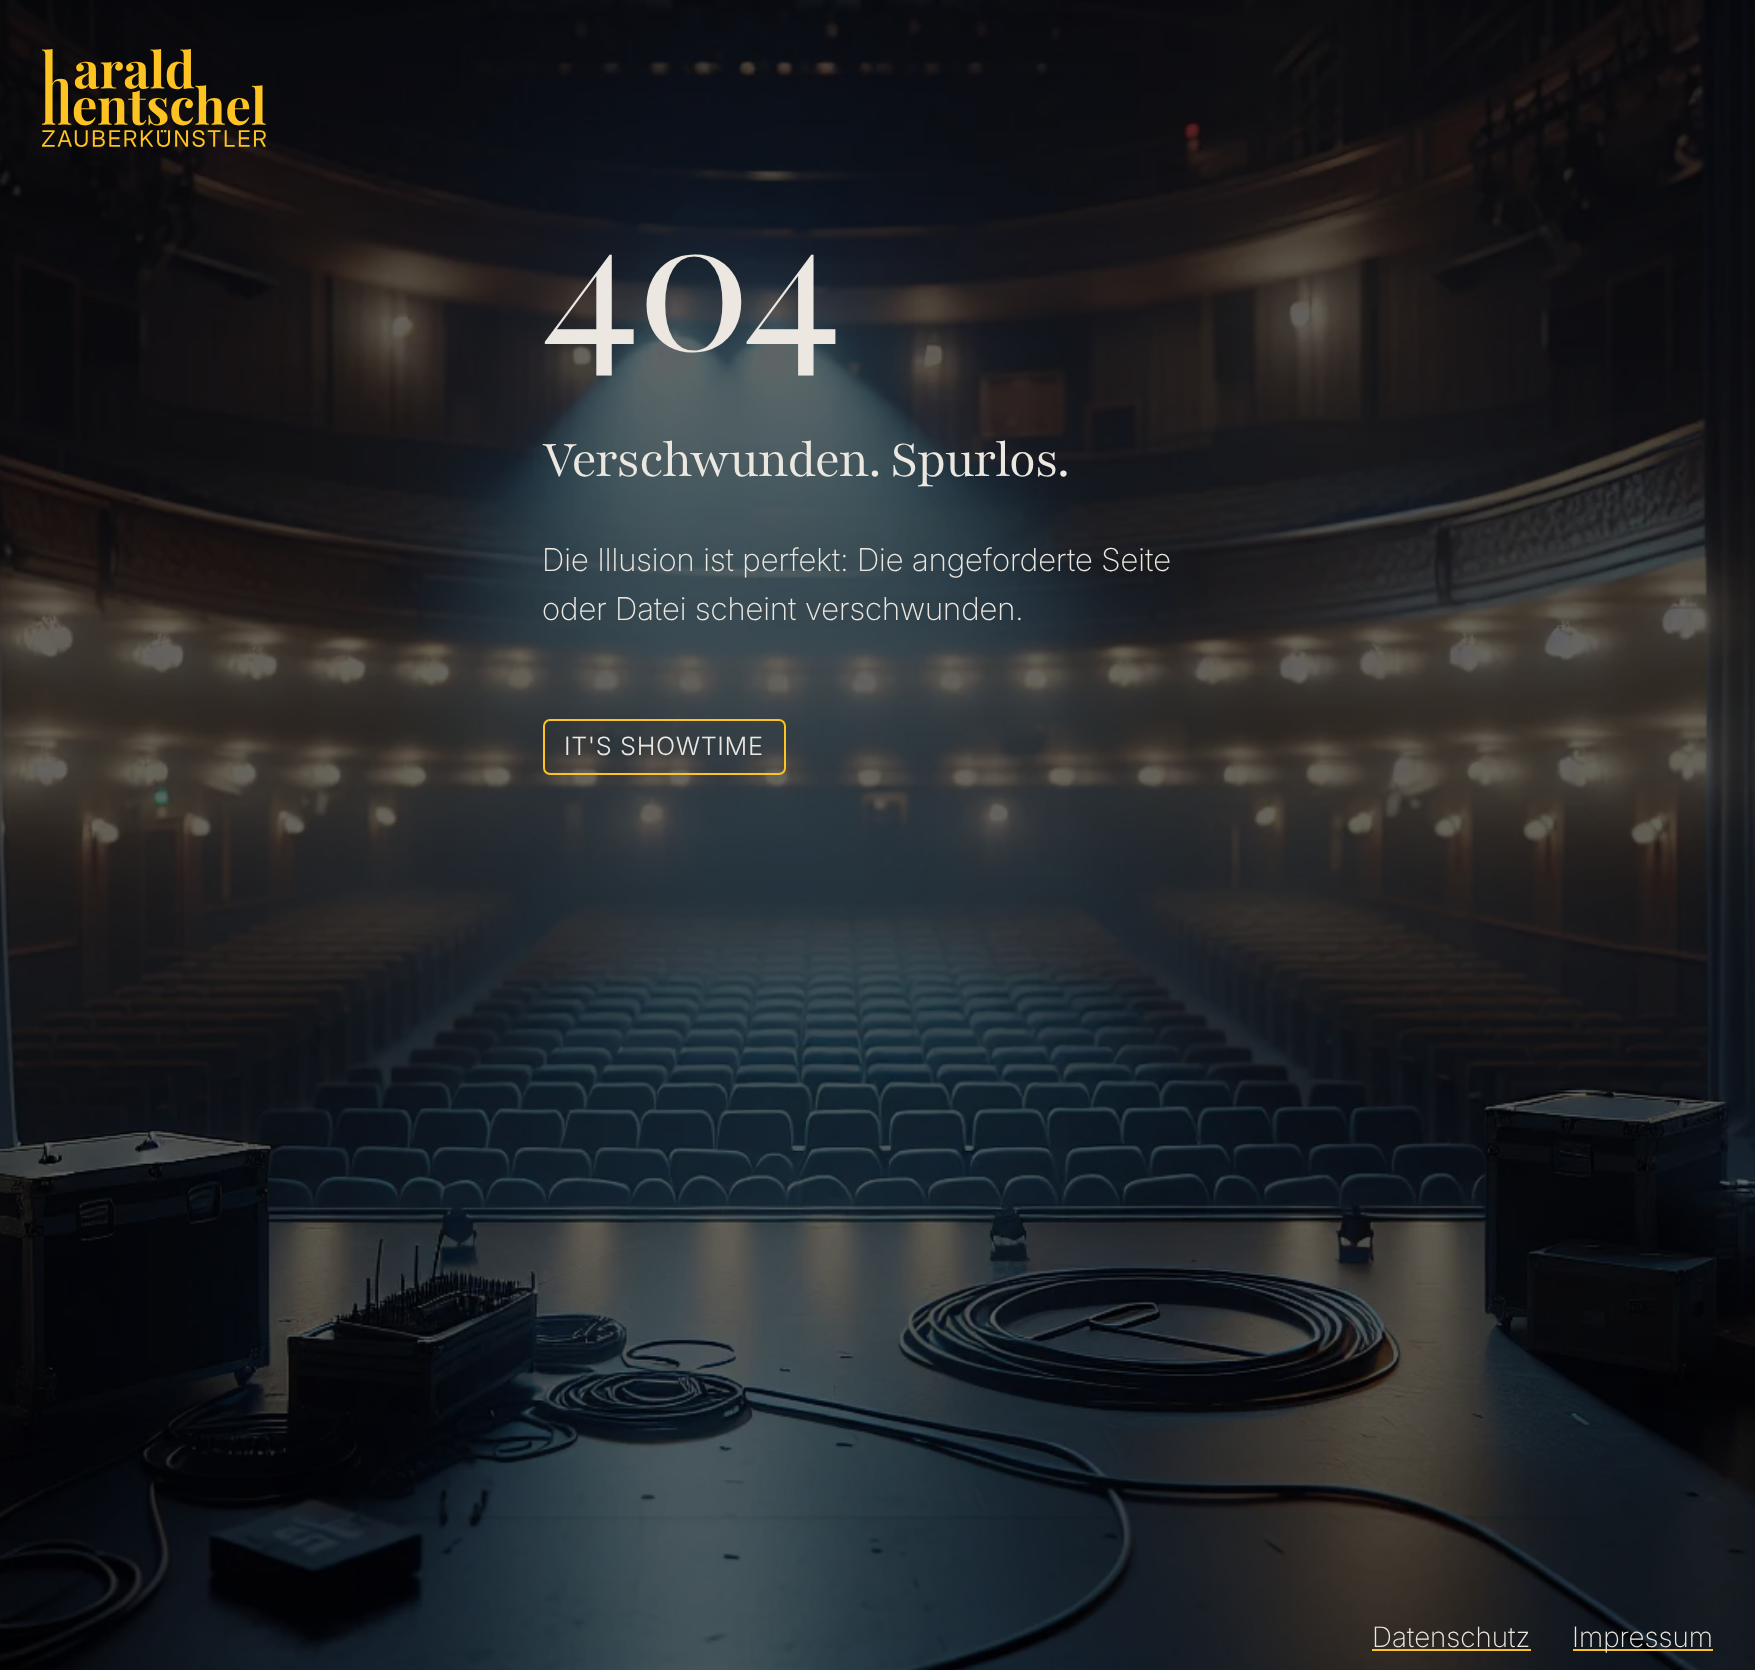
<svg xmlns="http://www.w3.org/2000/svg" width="1755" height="1670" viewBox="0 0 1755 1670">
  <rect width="100%" height="100%" fill="#ffffff"/>
  <image x="0" y="0" width="1755" height="1670" href="img1.png"/>
  <image x="42" y="49" width="224" height="98" href="img2.png"/>
  <text x="542" y="350" font-family="Playfair" font-size="224" letter-spacing="-5.5" fill="#ece8e1">404</text>
  <text x="542" y="476" font-family="Playfair" font-size="56" font-weight="300" letter-spacing="-1.4" fill="#ece8e1">Verschwunden. Spurlos.</text>
  <text x="542" y="571" font-family="Inter" font-size="31.5" font-weight="200" fill="#ece8e1">Die Illusion ist perfekt: Die angeforderte Seite</text>
  <text x="542" y="620" font-family="Inter" font-size="31.5" font-weight="200" fill="#ece8e1">oder Datei scheint verschwunden.</text>
  <rect x="544" y="720" width="241" height="54" rx="6" fill="none" stroke="#fdc322" stroke-width="2"/>
  <text x="564" y="755" font-family="Inter" font-size="25.25" font-weight="300" letter-spacing="0.6" fill="#ece8e1">IT'S SHOWTIME</text>
  <text x="1372" y="1647" font-family="'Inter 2'" font-size="28" font-weight="200" fill="#ece8e1">Datenschutz</text>
  <rect x="1372" y="1649" width="159" height="2" fill="#fdc322"/>
  <rect x="1573" y="1649" width="140" height="2" fill="#fdc322"/>
  <text x="1572" y="1647" font-family="'Inter 2'" font-size="28" font-weight="200" fill="#ece8e1">Impressum</text>
</svg>
